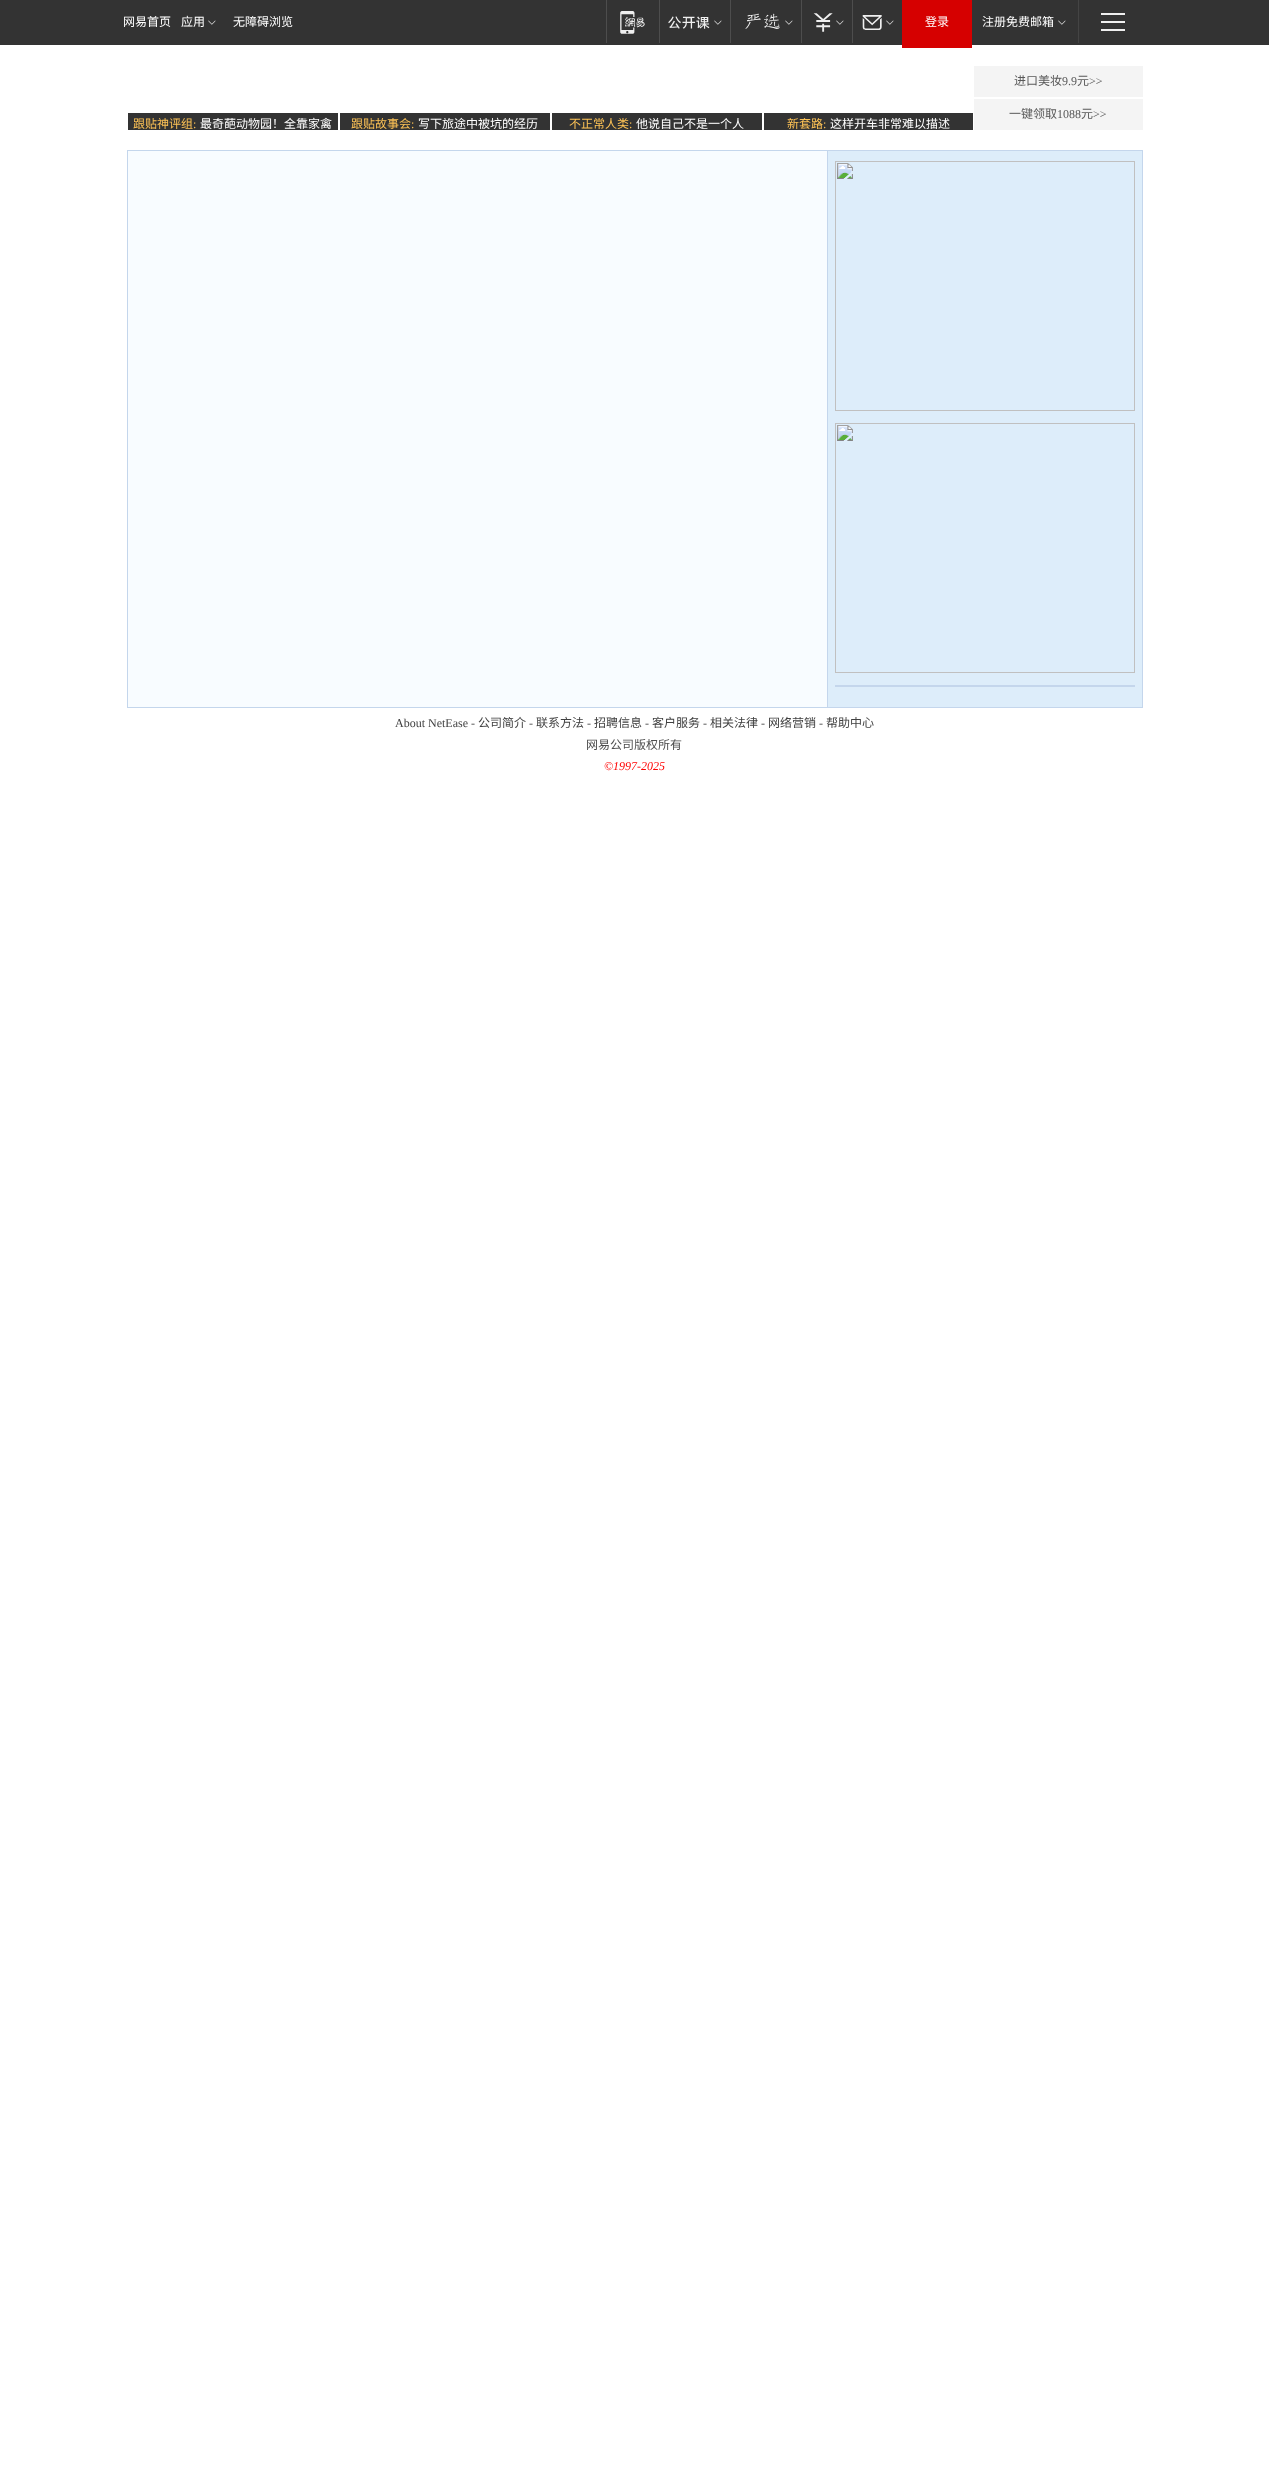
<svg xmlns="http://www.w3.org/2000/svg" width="1269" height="2474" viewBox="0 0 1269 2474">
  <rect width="100%" height="100%" fill="#ffffff"/>
  <rect x="0" y="0" width="1269" height="45" fill="#333333"/>
  <text x="123" y="26" font-family="Noto Sans CJK SC" font-size="12" fill="#ffffff">网易首页</text>
  <text x="181" y="26" font-family="Noto Sans CJK SC" font-size="12" fill="#ffffff">应用</text>
  <image x="208" y="20" width="8" height="5" href="img1.png"/>
  <text x="233" y="26" font-family="Noto Sans CJK SC" font-size="12" fill="#ffffff">无障碍浏览</text>
  <rect x="606" y="0" width="1" height="43" fill="#4d4d4d"/>
  <image x="620" y="11" width="25" height="23" href="img2.png"/>
  <rect x="659" y="0" width="1" height="43" fill="#4d4d4d"/>
  <image x="668" y="16" width="42" height="13" href="img3.png"/>
  <image x="714" y="20" width="8" height="5" href="img1.png"/>
  <rect x="730" y="0" width="1" height="43" fill="#4d4d4d"/>
  <image x="745" y="13" width="35" height="16" href="img4.png"/>
  <image x="785" y="20" width="8" height="5" href="img1.png"/>
  <rect x="801" y="0" width="1" height="43" fill="#4d4d4d"/>
  <image x="813" y="13" width="20" height="19" href="img5.png"/>
  <image x="836" y="20" width="8" height="5" href="img1.png"/>
  <rect x="852" y="0" width="1" height="43" fill="#4d4d4d"/>
  <image x="862" y="15" width="20" height="15" href="img6.png"/>
  <image x="886" y="20" width="8" height="5" href="img1.png"/>
  <rect x="902" y="0" width="70" height="48" fill="#d60000"/>
  <text x="925" y="26" font-family="Noto Sans CJK SC" font-size="12" fill="#ffffff">登录</text>
  <text x="982" y="26" font-family="Noto Sans CJK SC" font-size="12" fill="#ffffff">注册免费邮箱</text>
  <image x="1058" y="20" width="8" height="5" href="img1.png"/>
  <rect x="1078" y="0" width="1" height="43" fill="#444444"/>
  <rect x="1101" y="13" width="24" height="2" fill="#efefef"/>
  <rect x="1101" y="21" width="24" height="2" fill="#efefef"/>
  <rect x="1101" y="29" width="24" height="2" fill="#efefef"/>
  <rect x="974" y="66" width="169" height="31" fill="#f4f4f4"/>
  <text x="1014" y="85" font-family="Noto Sans CJK SC" font-size="12" fill="#585858">进口美妆</text>
  <text x="1062" y="85" font-family="Liberation Serif" font-size="12" fill="#585858">9.9</text>
  <text x="1077" y="85" font-family="Noto Sans CJK SC" font-size="12" fill="#585858">元</text>
  <text x="1089" y="85" font-family="Liberation Serif" font-size="12" fill="#585858">&gt;&gt;</text>
  <rect x="974" y="99" width="169" height="31" fill="#f4f4f4"/>
  <text x="1009" y="118" font-family="Noto Sans CJK SC" font-size="12" fill="#585858">一键领取</text>
  <text x="1057" y="118" font-family="Liberation Serif" font-size="12" fill="#585858">1088</text>
  <text x="1081" y="118" font-family="Noto Sans CJK SC" font-size="12" fill="#585858">元</text>
  <text x="1093" y="118" font-family="Liberation Serif" font-size="12" fill="#585858">&gt;&gt;</text>
  <rect x="128" y="113" width="210" height="17" fill="#333333"/>
  <text x="133" y="128" font-family="Noto Sans CJK SC" font-size="12" fill="#fdc255">跟贴神评组</text>
  <text x="193" y="128" font-family="Liberation Serif" font-size="12" fill="#fdc255">:</text>
  <text x="200" y="128" font-family="Noto Sans CJK SC" font-size="12" fill="#ffffff">最奇葩动物园！全靠家禽</text>
  <rect x="340" y="113" width="210" height="17" fill="#333333"/>
  <text x="351" y="128" font-family="Noto Sans CJK SC" font-size="12" fill="#fdc255">跟贴故事会</text>
  <text x="411" y="128" font-family="Liberation Serif" font-size="12" fill="#fdc255">:</text>
  <text x="418" y="128" font-family="Noto Sans CJK SC" font-size="12" fill="#ffffff">写下旅途中被坑的经历</text>
  <rect x="552" y="113" width="210" height="17" fill="#333333"/>
  <text x="569" y="128" font-family="Noto Sans CJK SC" font-size="12" fill="#fdc255">不正常人类</text>
  <text x="629" y="128" font-family="Liberation Serif" font-size="12" fill="#fdc255">:</text>
  <text x="636" y="128" font-family="Noto Sans CJK SC" font-size="12" fill="#ffffff">他说自己不是一个人</text>
  <rect x="764" y="113" width="209" height="17" fill="#333333"/>
  <text x="787" y="128" font-family="Noto Sans CJK SC" font-size="12" fill="#fdc255">新套路</text>
  <text x="823" y="128" font-family="Liberation Serif" font-size="12" fill="#fdc255">:</text>
  <text x="830" y="128" font-family="Noto Sans CJK SC" font-size="12" fill="#ffffff">这样开车非常难以描述</text>
  <image x="127" y="151" width="1016" height="556" href="img7.png"/>
  <rect x="127" y="150" width="1016" height="1" fill="#c4d6ec"/>
  <rect x="127" y="707" width="1016" height="1" fill="#c4d6ec"/>
  <image x="835" y="161" width="300" height="250" href="img8.png"/>
  <image x="835" y="423" width="300" height="250" href="img8.png"/>
  <rect x="835" y="685" width="300" height="2" fill="#c4d6ec"/>
  <text x="395" y="727" font-family="Liberation Serif" font-size="12" fill="#404040">About NetEase</text>
  <text x="471" y="727" font-family="Liberation Serif" font-size="12" fill="#4d4d4d">-</text>
  <text x="478" y="727" font-family="Noto Sans CJK SC" font-size="12" fill="#404040">公司简介</text>
  <text x="529" y="727" font-family="Liberation Serif" font-size="12" fill="#4d4d4d">-</text>
  <text x="536" y="727" font-family="Noto Sans CJK SC" font-size="12" fill="#404040">联系方法</text>
  <text x="587" y="727" font-family="Liberation Serif" font-size="12" fill="#4d4d4d">-</text>
  <text x="594" y="727" font-family="Noto Sans CJK SC" font-size="12" fill="#404040">招聘信息</text>
  <text x="645" y="727" font-family="Liberation Serif" font-size="12" fill="#4d4d4d">-</text>
  <text x="652" y="727" font-family="Noto Sans CJK SC" font-size="12" fill="#404040">客户服务</text>
  <text x="703" y="727" font-family="Liberation Serif" font-size="12" fill="#4d4d4d">-</text>
  <text x="710" y="727" font-family="Noto Sans CJK SC" font-size="12" fill="#404040">相关法律</text>
  <text x="761" y="727" font-family="Liberation Serif" font-size="12" fill="#4d4d4d">-</text>
  <text x="768" y="727" font-family="Noto Sans CJK SC" font-size="12" fill="#404040">网络营销</text>
  <text x="819" y="727" font-family="Liberation Serif" font-size="12" fill="#4d4d4d">-</text>
  <text x="826" y="727" font-family="Noto Sans CJK SC" font-size="12" fill="#404040">帮助中心</text>
  <text x="586" y="749" font-family="Noto Sans CJK SC" font-size="12" fill="#4d4d4d">网易公司版权所有</text>
  <text x="604" y="770" font-family="Liberation Serif" font-size="12" font-style="italic" fill="#ff0000">©1997-2025</text>
</svg>
